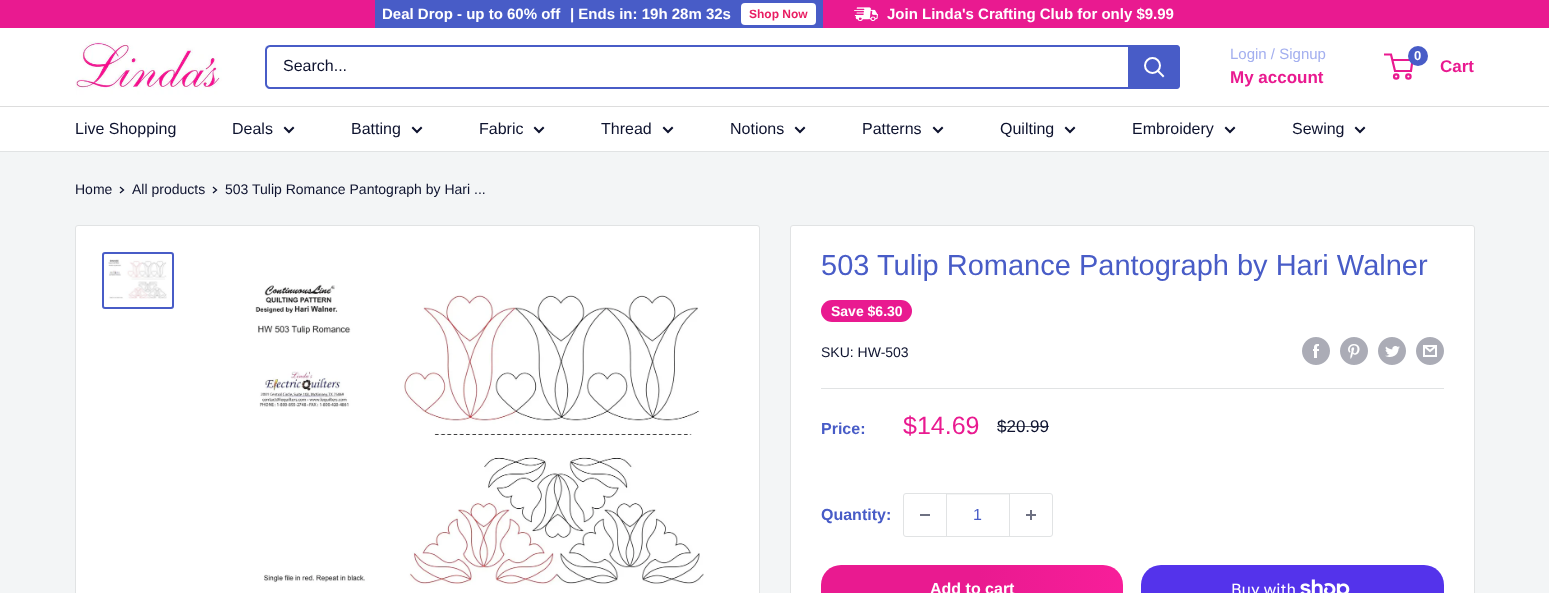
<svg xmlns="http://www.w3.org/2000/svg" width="1549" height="593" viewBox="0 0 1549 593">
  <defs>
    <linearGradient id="g1" gradientUnits="userSpaceOnUse" x1="820" y1="576" x2="1154" y2="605"><stop offset="0.47" stop-color="#e91a90"/><stop offset="1" stop-color="#fb1f9c"/></linearGradient>
  </defs>
  <rect width="100%" height="100%" fill="#f3f5f6"/>
  <rect x="0" y="0" width="1549" height="28" fill="#e91a90"/>
  <rect x="375" y="0" width="448" height="28" fill="#485cc7"/>
  <text x="382" y="19" font-family="Liberation Sans" font-size="15" font-weight="bold" fill="#ffffff">Deal Drop - up to 60% off</text>
  <text x="570" y="19" font-family="Liberation Sans" font-size="15" font-weight="bold" fill="#ffffff">| Ends in: 19h 28m 32s</text>
  <rect x="741" y="3" width="75" height="22" rx="4" fill="#ffffff"/>
  <text x="749" y="18" font-family="Liberation Sans" font-size="12" font-weight="bold" fill="#e91e63">Shop Now</text>
  <image x="854" y="7" width="24" height="14" href="img1.png"/>
  <text x="887" y="19" font-family="Liberation Sans" font-size="15" font-weight="bold" fill="#ffffff">Join Linda's Crafting Club for only $9.99</text>
  <rect x="0" y="28" width="1549" height="78" fill="#ffffff"/>
  <image x="75" y="41" width="150" height="65" href="img2.png"/>
  <path d="M266 88L268 89H1177L1179 88L1180 87V48L1179 46V79C1179 81 1181 88 1176 88Z" fill="#e3e7fa"/>
  <path d="M269 46H1179L1177 45H268L266 46L265 47V86L266 88V55C266 53 264 46 269 46Z" fill="#e3e7fa"/>
  <path d="M270 46H1129V88H270C268 88 266 86 266 84V50C266 48 268 46 270 46Z" fill="none" stroke="#485cc7" stroke-width="2"/>
  <text x="283" y="71" font-family="Liberation Sans" font-size="16" fill="#0d122e">Search...</text>
  <path d="M1130 45H1177C1178.5 45 1180 46.5 1180 48V86C1180 87.5 1178.5 89 1177 89H1130Z" fill="#485cc7"/>
  <path d="M1163 76L1158 71" fill="none" stroke="#ffffff" stroke-width="2" stroke-linecap="square"/>
  <circle cx="1152.5" cy="65.5" r="7.5" fill="none" stroke="#ffffff" stroke-width="2"/>
  <text x="1230" y="59" font-family="Liberation Sans" font-size="15" fill="#a3afef">Login / Signup</text>
  <text x="1230" y="83" font-family="Liberation Sans" font-size="17" font-weight="bold" fill="#e91a90">My account</text>
  <circle cx="1396.2" cy="76.5" r="2.2" fill="none" stroke="#e91a90" stroke-width="2.2"/>
  <circle cx="1408.4" cy="76.5" r="2.2" fill="none" stroke="#e91a90" stroke-width="2.2"/>
  <path d="M1392 60H1412.5L1411 71H1395L1391 54.5H1384" fill="none" stroke="#e91a90" stroke-width="2.2"/>
  <circle cx="1418" cy="56" r="10" fill="#485cc7"/>
  <text x="1414" y="60" font-family="Liberation Sans" font-size="13" font-weight="bold" fill="#ffffff">0</text>
  <text x="1440" y="72" font-family="Liberation Sans" font-size="17" font-weight="bold" fill="#e91a90">Cart</text>
  <rect x="0" y="107" width="1549" height="44" fill="#ffffff"/>
  <rect x="0" y="106" width="1549" height="1" fill="#dddddd"/>
  <rect x="0" y="151" width="1549" height="1" fill="#e1e3e4"/>
  <text x="75" y="134" font-family="Liberation Sans" font-size="16" fill="#0d122e">Live Shopping</text>
  <text x="232" y="134" font-family="Liberation Sans" font-size="16" fill="#0d122e">Deals</text>
  <path d="M293 128L289 132L285 128" fill="none" stroke="#0d122e" stroke-width="2" stroke-linecap="square"/>
  <text x="351" y="134" font-family="Liberation Sans" font-size="16" fill="#0d122e">Batting</text>
  <path d="M421 128L417 132L413 128" fill="none" stroke="#0d122e" stroke-width="2" stroke-linecap="square"/>
  <text x="479" y="134" font-family="Liberation Sans" font-size="16" fill="#0d122e">Fabric</text>
  <path d="M543 128L539 132L535 128" fill="none" stroke="#0d122e" stroke-width="2" stroke-linecap="square"/>
  <text x="601" y="134" font-family="Liberation Sans" font-size="16" fill="#0d122e">Thread</text>
  <path d="M672 128L668 132L664 128" fill="none" stroke="#0d122e" stroke-width="2" stroke-linecap="square"/>
  <text x="730" y="134" font-family="Liberation Sans" font-size="16" fill="#0d122e">Notions</text>
  <path d="M804 128L800 132L796 128" fill="none" stroke="#0d122e" stroke-width="2" stroke-linecap="square"/>
  <text x="862" y="134" font-family="Liberation Sans" font-size="16" fill="#0d122e">Patterns</text>
  <path d="M942 128L938 132L934 128" fill="none" stroke="#0d122e" stroke-width="2" stroke-linecap="square"/>
  <text x="1000" y="134" font-family="Liberation Sans" font-size="16" fill="#0d122e">Quilting</text>
  <path d="M1074 128L1070 132L1066 128" fill="none" stroke="#0d122e" stroke-width="2" stroke-linecap="square"/>
  <text x="1132" y="134" font-family="Liberation Sans" font-size="16" fill="#0d122e">Embroidery</text>
  <path d="M1234 128L1230 132L1226 128" fill="none" stroke="#0d122e" stroke-width="2" stroke-linecap="square"/>
  <text x="1292" y="134" font-family="Liberation Sans" font-size="16" fill="#0d122e">Sewing</text>
  <path d="M1364 128L1360 132L1356 128" fill="none" stroke="#0d122e" stroke-width="2" stroke-linecap="square"/>
  <text x="75" y="194" font-family="Liberation Sans" font-size="14" fill="#0d122e">Home</text>
  <path d="M120.5 187.5L123.5 190L120.5 192.5" fill="none" stroke="#0d122e" stroke-width="1.3" stroke-linecap="square"/>
  <text x="132" y="194" font-family="Liberation Sans" font-size="14" fill="#0d122e">All products</text>
  <path d="M213.5 187.5L216.5 190L213.5 192.5" fill="none" stroke="#0d122e" stroke-width="1.3" stroke-linecap="square"/>
  <text x="225" y="194" font-family="Liberation Sans" font-size="14" fill="#0d122e">503 Tulip Romance Pantograph by Hari ...</text>
  <rect x="75.5" y="225.5" width="684" height="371" rx="2.5" fill="#ffffff" stroke="#e1e3e4"/>
  <rect x="103" y="253" width="70" height="55" rx="2" fill="none" stroke="#485cc7" stroke-width="2"/>
  <image x="108" y="259" width="59" height="40" href="img3.png"/>
  <image x="255" y="284" width="449" height="301" href="img4.png"/>
  <rect x="790.5" y="225.5" width="684" height="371" rx="2.5" fill="#ffffff" stroke="#e1e3e4"/>
  <text x="821" y="275" font-family="Liberation Sans" font-size="29" fill="#485cc7">503 Tulip Romance Pantograph by Hari Walner</text>
  <rect x="821" y="300" width="91" height="22" rx="11" fill="#e91a90"/>
  <text x="831" y="316" font-family="Liberation Sans" font-size="14" font-weight="bold" fill="#ffffff">Save $6.30</text>
  <text x="821" y="357" font-family="Liberation Sans" font-size="14" fill="#0d122e">SKU: HW-503</text>
  <image x="1302" y="337" width="28" height="28" href="img5.png"/>
  <image x="1340" y="337" width="28" height="28" href="img6.png"/>
  <image x="1378" y="337" width="28" height="28" href="img7.png"/>
  <image x="1416" y="337" width="28" height="28" href="img8.png"/>
  <rect x="821" y="388" width="623" height="1" fill="#e1e3e4"/>
  <text x="821" y="434" font-family="Liberation Sans" font-size="16" font-weight="bold" fill="#485cc7">Price:</text>
  <text x="903" y="434" font-family="Liberation Sans" font-size="25" fill="#e91a90">$14.69</text>
  <text x="997" y="432" font-family="Liberation Sans" font-size="17" fill="#0d122e">$20.99</text>
  <rect x="997" y="426" width="52" height="1" fill="#0d122e" fill-opacity="0.7"/>
  <text x="821" y="520" font-family="Liberation Sans" font-size="16" font-weight="bold" fill="#485cc7">Quantity:</text>
  <rect x="903.5" y="493.5" width="149" height="43" rx="2.5" fill="none" stroke="#e1e3e4"/>
  <rect x="920" y="514" width="10" height="2" fill="#6e7182"/>
  <rect x="947" y="494" width="62" height="1" fill="#f3f4f4"/>
  <rect x="1009" y="494" width="1" height="42" fill="#e1e3e4"/>
  <rect x="946" y="494" width="1" height="42" fill="#e1e3e4"/>
  <text x="973" y="520" font-family="Liberation Sans" font-size="16" fill="#485cc7">1</text>
  <image x="1026" y="510" width="10" height="10" href="img9.png"/>
  <rect x="821" y="565" width="302" height="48" rx="20" fill="url(#g1)"/>
  <text x="930" y="594" font-family="Liberation Sans" font-size="16" font-weight="bold" fill="#ffffff">Add to cart</text>
  <rect x="1141" y="565" width="303" height="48" rx="20" fill="#5433eb"/>
  <text x="1231" y="595" font-family="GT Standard" font-size="16" fill="#ffffff">Buy with</text>
  <image x="1300" y="579" width="50" height="14" href="img10.png"/>
</svg>
